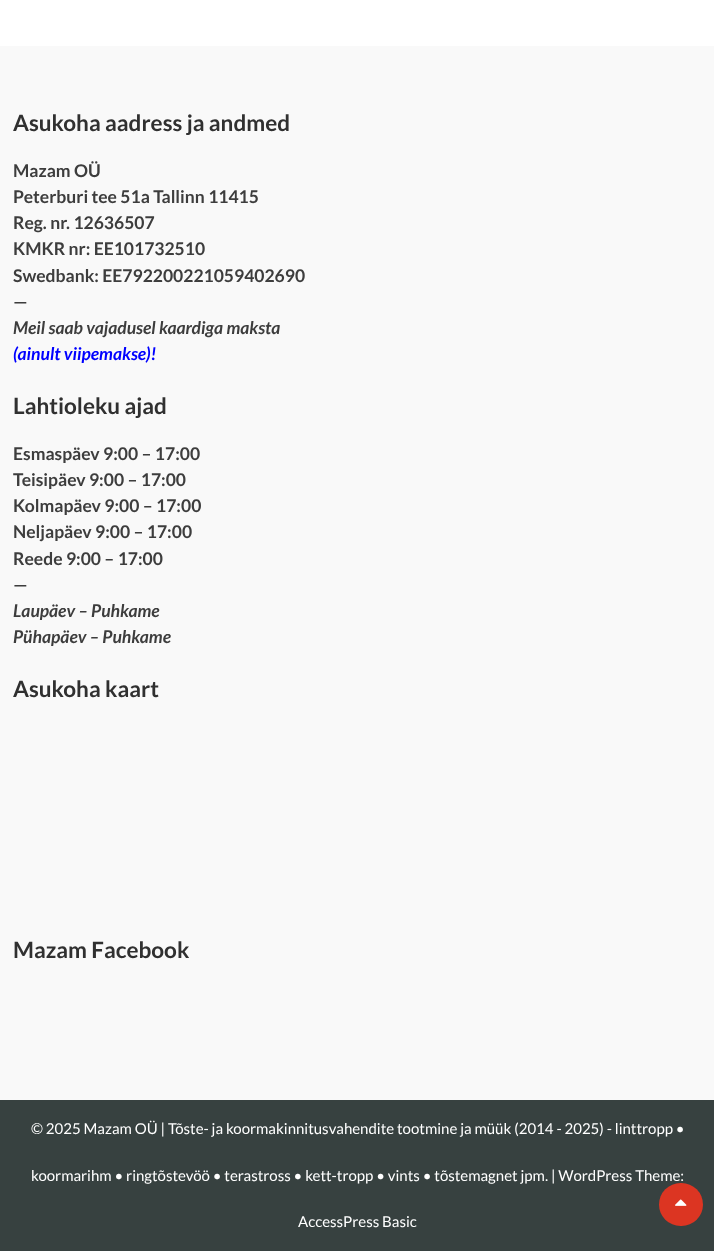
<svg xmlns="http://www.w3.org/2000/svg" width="714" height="1251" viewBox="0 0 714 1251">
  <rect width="100%" height="100%" fill="#ffffff"/>
  <rect x="0" y="46" width="714" height="1054" fill="#f9f9f9"/>
  <text x="13" y="131" font-family="Lato" font-size="22.5" font-weight="bold" fill="#303030">Asukoha aadress ja andmed</text>
  <text x="13" y="177" font-family="Lato" font-size="17.5" font-weight="bold" fill="#3d3d3d">Mazam OÜ</text>
  <text x="13" y="203" font-family="Lato" font-size="17.5" font-weight="bold" fill="#3d3d3d">Peterburi tee 51a Tallinn 11415</text>
  <text x="13" y="229" font-family="Lato" font-size="17.5" font-weight="bold" fill="#3d3d3d">Reg. nr. 12636507</text>
  <text x="13" y="255" font-family="Lato" font-size="17.5" font-weight="bold" fill="#3d3d3d">KMKR nr: EE101732510</text>
  <text x="13" y="282" font-family="Lato" font-size="17.5" font-weight="bold" fill="#3d3d3d">Swedbank: EE792200221059402690</text>
  <text x="13" y="308" font-family="Lato" font-size="17.5" font-weight="bold" fill="#3d3d3d">—</text>
  <text x="13" y="334" font-family="Lato" font-size="17.5" font-weight="bold" font-style="italic" fill="#3d3d3d">Meil saab vajadusel kaardiga maksta</text>
  <text x="13" y="360" font-family="Lato" font-size="17.5" font-weight="bold" font-style="italic" fill="#0000ff">(ainult viipemakse)!</text>
  <text x="13" y="414" font-family="Lato" font-size="22.5" font-weight="bold" fill="#303030">Lahtioleku ajad</text>
  <text x="13" y="460" font-family="Lato" font-size="17.5" font-weight="bold" fill="#3d3d3d">Esmaspäev 9:00 – 17:00</text>
  <text x="13" y="486" font-family="Lato" font-size="17.5" font-weight="bold" fill="#3d3d3d">Teisipäev 9:00 – 17:00</text>
  <text x="13" y="512" font-family="Lato" font-size="17.5" font-weight="bold" fill="#3d3d3d">Kolmapäev 9:00 – 17:00</text>
  <text x="13" y="538" font-family="Lato" font-size="17.5" font-weight="bold" fill="#3d3d3d">Neljapäev 9:00 – 17:00</text>
  <text x="13" y="565" font-family="Lato" font-size="17.5" font-weight="bold" fill="#3d3d3d">Reede 9:00 – 17:00</text>
  <text x="13" y="591" font-family="Lato" font-size="17.5" font-weight="bold" fill="#3d3d3d">—</text>
  <text x="13" y="617" font-family="Lato" font-size="17.5" font-weight="bold" font-style="italic" fill="#3d3d3d">Laupäev – Puhkame</text>
  <text x="13" y="643" font-family="Lato" font-size="17.5" font-weight="bold" font-style="italic" fill="#3d3d3d">Pühapäev – Puhkame</text>
  <text x="13" y="697" font-family="Lato" font-size="22.5" font-weight="bold" fill="#303030">Asukoha kaart</text>
  <text x="13" y="958" font-family="Lato" font-size="22.5" font-weight="bold" fill="#303030">Mazam Facebook</text>
  <rect x="0" y="1100" width="714" height="151" fill="#374140"/>
  <text x="31" y="1134" font-family="Lato" font-size="15" fill="#ffffff">© 2025 Mazam OÜ | Tõste- ja koormakinnitusvahendite tootmine ja müük (2014 - 2025) - linttropp •</text>
  <text x="31" y="1181" font-family="Lato" font-size="15" fill="#ffffff">koormarihm • ringtõstevöö • terastross • kett-tropp • vints • tõstemagnet jpm. | WordPress Theme:</text>
  <text x="298" y="1227" font-family="Lato" font-size="15" fill="#ffffff">AccessPress Basic</text>
  <rect x="659" y="1183" width="44" height="43" rx="21.5" fill="#dc3522"/>
  <image x="675" y="1199" width="12" height="7" href="img1.png"/>
</svg>
